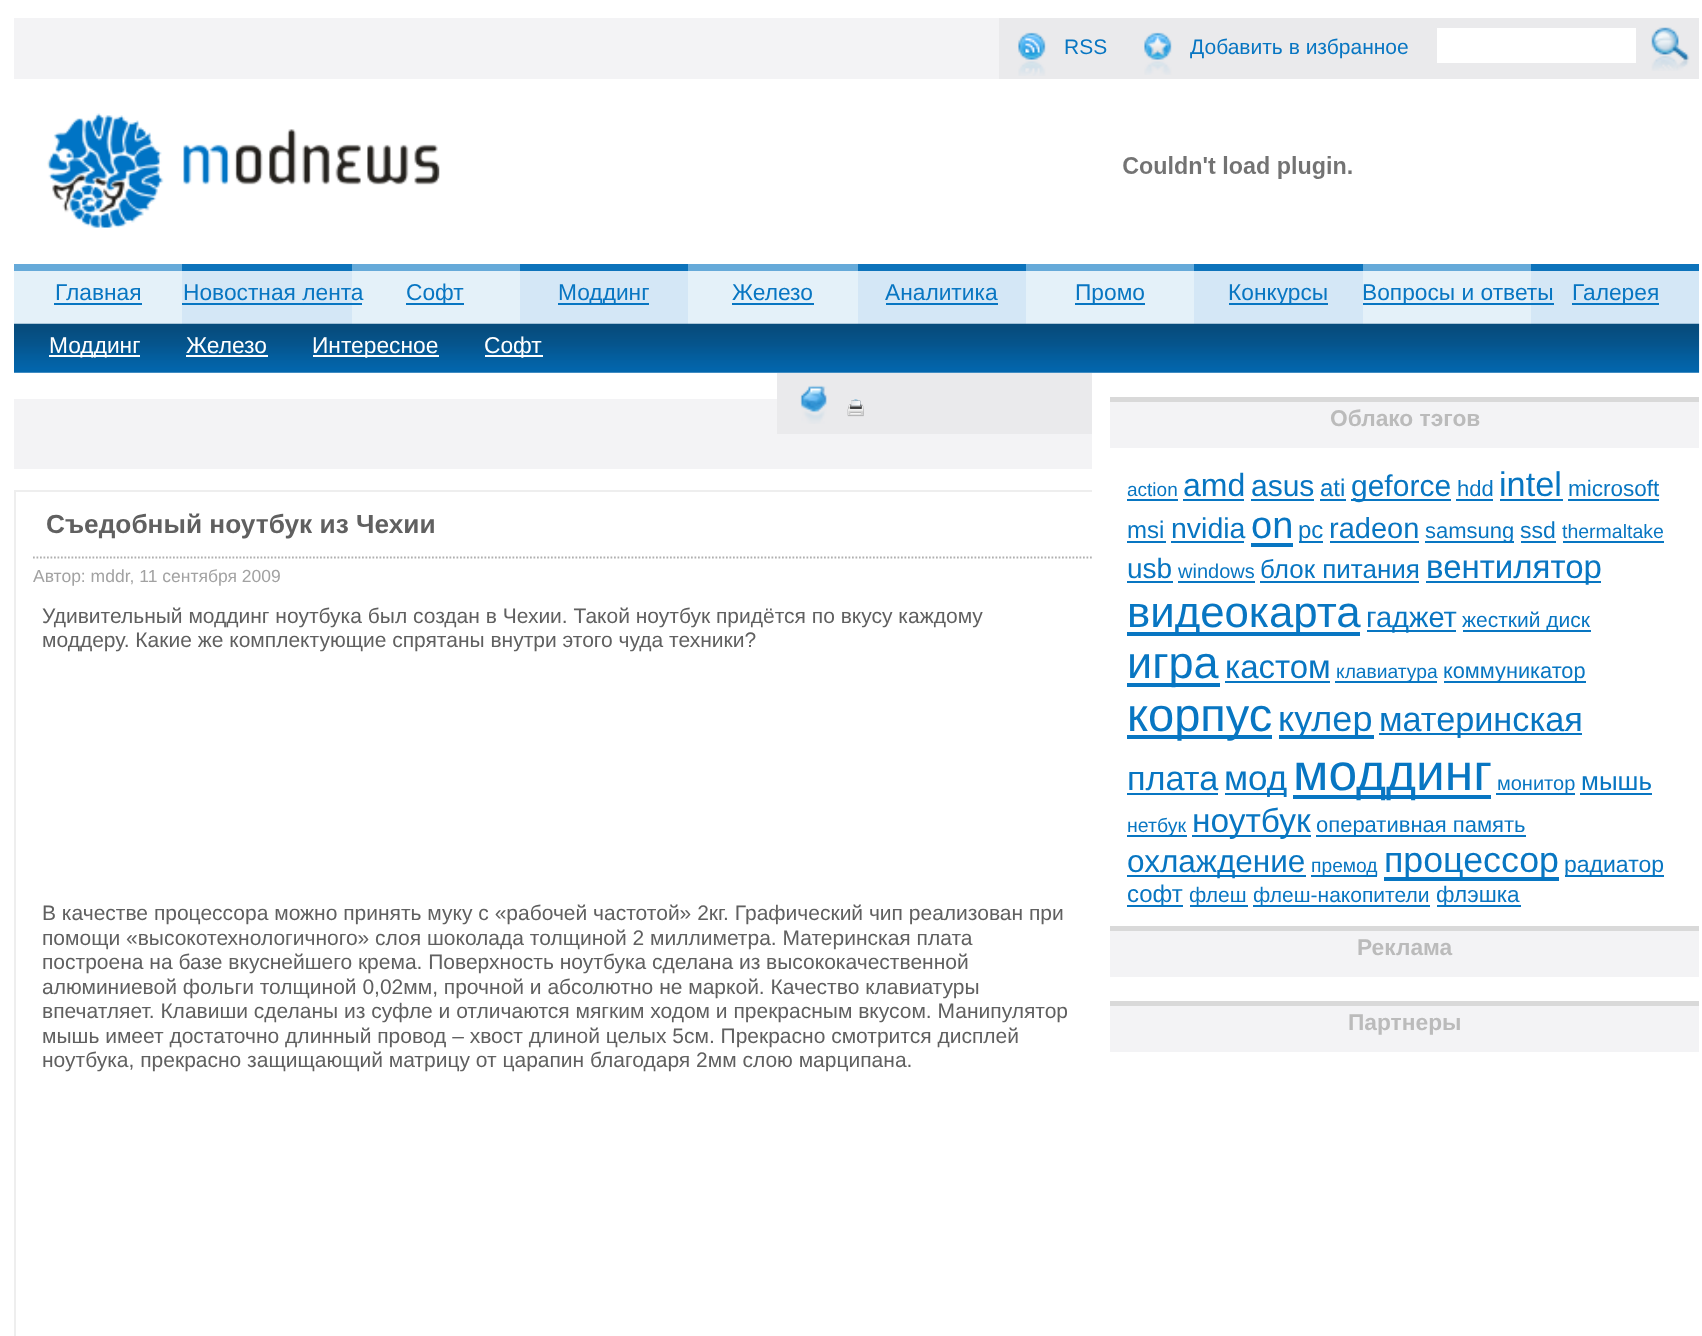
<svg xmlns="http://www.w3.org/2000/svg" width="1702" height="1336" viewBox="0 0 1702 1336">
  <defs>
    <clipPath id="clip1"><rect x="14" y="373" width="1078" height="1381"/></clipPath>
    <clipPath id="clip2"><rect x="16" y="492" width="1076" height="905"/></clipPath>
  </defs>
  <rect width="100%" height="100%" fill="#ffffff"/>
  <rect x="14" y="18" width="985" height="61" fill="#f3f3f5"/>
  <rect x="999" y="18" width="700" height="61" fill="#eaeaec"/>
  <image x="1018" y="32" width="28" height="44" href="img1.png"/>
  <text x="1064" y="54" font-family="Liberation Sans" font-size="21" fill="#0876c2">RSS</text>
  <image x="1144" y="32" width="28" height="43" href="img2.png"/>
  <text x="1190" y="54" font-family="Liberation Sans" font-size="21" fill="#0876c2">Добавить в избранное</text>
  <rect x="1437" y="28" width="199" height="35" fill="#ffffff"/>
  <image x="1651" y="27" width="39" height="44" href="img3.png"/>
  <image x="47" y="113" width="393" height="115" href="img4.png"/>
  <image x="1123" y="156" width="229" height="23" href="img5.png"/>
  <rect x="352" y="271" width="168" height="53" fill="#e4f1f9"/>
  <rect x="352" y="264" width="168" height="7" fill="#66aad9"/>
  <rect x="406" y="303" width="58" height="2" fill="#0876c2"/>
  <text x="406" y="300" font-family="Liberation Sans" font-size="22.75" fill="#0876c2">Софт</text>
  <rect x="182" y="271" width="170" height="53" fill="#d4e7f6"/>
  <rect x="182" y="264" width="170" height="7" fill="#0d73bb"/>
  <text x="183" y="300" font-family="Liberation Sans" font-size="22.75" fill="#0876c2">Новостная лента</text>
  <rect x="182" y="303" width="180" height="2" fill="#0876c2"/>
  <rect x="14" y="271" width="168" height="53" fill="#e4f1f9"/>
  <rect x="520" y="271" width="168" height="53" fill="#d4e7f6"/>
  <rect x="688" y="271" width="170" height="53" fill="#e4f1f9"/>
  <rect x="858" y="271" width="168" height="53" fill="#d4e7f6"/>
  <rect x="1026" y="271" width="168" height="53" fill="#e4f1f9"/>
  <rect x="1194" y="271" width="169" height="53" fill="#d4e7f6"/>
  <rect x="1363" y="271" width="168" height="53" fill="#e4f1f9"/>
  <rect x="1531" y="271" width="168" height="53" fill="#d4e7f6"/>
  <image x="14" y="323" width="1686" height="50" href="img6.png"/>
  <rect x="49" y="355" width="91" height="2" fill="#ffffff"/>
  <text x="49" y="353" font-family="Liberation Sans" font-size="22.75" fill="#ffffff">Моддинг</text>
  <text x="186" y="353" font-family="Liberation Sans" font-size="22.75" fill="#ffffff">Железо</text>
  <rect x="186" y="355" width="82" height="2" fill="#ffffff"/>
  <rect x="313" y="355" width="126" height="2" fill="#ffffff"/>
  <text x="312" y="353" font-family="Liberation Sans" font-size="22.75" fill="#ffffff">Интересное</text>
  <rect x="485" y="355" width="58" height="2" fill="#ffffff"/>
  <text x="484" y="353" font-family="Liberation Sans" font-size="22.75" fill="#ffffff">Софт</text>
  <rect x="14" y="264" width="168" height="7" fill="#66aad9"/>
  <text x="55" y="300" font-family="Liberation Sans" font-size="22.75" fill="#0876c2">Главная</text>
  <rect x="54" y="303" width="88" height="2" fill="#0876c2"/>
  <rect x="520" y="264" width="168" height="7" fill="#0d73bb"/>
  <rect x="558" y="303" width="91" height="2" fill="#0876c2"/>
  <text x="558" y="300" font-family="Liberation Sans" font-size="22.75" fill="#0876c2">Моддинг</text>
  <rect x="688" y="264" width="170" height="7" fill="#66aad9"/>
  <text x="732" y="300" font-family="Liberation Sans" font-size="22.75" fill="#0876c2">Железо</text>
  <rect x="732" y="303" width="82" height="2" fill="#0876c2"/>
  <rect x="858" y="264" width="168" height="7" fill="#0d73bb"/>
  <text x="885" y="300" font-family="Liberation Sans" font-size="22.75" fill="#0876c2">Аналитика</text>
  <rect x="886" y="303" width="112" height="2" fill="#0876c2"/>
  <rect x="1026" y="264" width="168" height="7" fill="#66aad9"/>
  <rect x="1075" y="303" width="70" height="2" fill="#0876c2"/>
  <text x="1075" y="300" font-family="Liberation Sans" font-size="22.75" fill="#0876c2">Промо</text>
  <rect x="1194" y="264" width="169" height="7" fill="#0d73bb"/>
  <rect x="1229" y="303" width="99" height="2" fill="#0876c2"/>
  <text x="1228" y="300" font-family="Liberation Sans" font-size="22.75" fill="#0876c2">Конкурсы</text>
  <rect x="1363" y="264" width="168" height="7" fill="#66aad9"/>
  <rect x="1363" y="303" width="191" height="2" fill="#0876c2"/>
  <text x="1362" y="300" font-family="Liberation Sans" font-size="22.75" fill="#0876c2">Вопросы и ответы</text>
  <rect x="1531" y="264" width="168" height="7" fill="#0d73bb"/>
  <rect x="1572" y="303" width="87" height="2" fill="#0876c2"/>
  <text x="1572" y="300" font-family="Liberation Sans" font-size="22.75" fill="#0876c2">Галерея</text>
  <rect x="14" y="399" width="1078" height="70" fill="#f3f3f5"/>
  <rect x="777" y="373" width="315" height="61" fill="#eaeaec"/>
  <image x="800" y="385" width="27" height="39" href="img7.png"/>
  <image x="847" y="399" width="17" height="18" href="img8.png"/>
  <g clip-path="url(#clip1)">
    <rect x="15" y="491" width="1080" height="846" fill="none" stroke="#eeeeee" stroke-width="2"/>
  </g>
  <g clip-path="url(#clip2)">
    <path d="M33 557.5H1108" fill="none" stroke="#b0b0b0" stroke-width="1.8" stroke-dasharray="1.75 1.75"/>
  </g>
  <text x="46" y="533" font-family="Liberation Sans" font-size="26.25" font-weight="bold" fill="#606060">Съедобный ноутбук из Чехии</text>
  <text x="33" y="582" font-family="Liberation Sans" font-size="17.5" fill="#a2a2a2">Автор: mddr, 11 сентября 2009</text>
  <text x="42" y="623" font-family="Liberation Sans" font-size="21" fill="#606060">Удивительный моддинг ноутбука был создан в Чехии. Такой ноутбук придётся по вкусу каждому</text>
  <text x="42" y="647" font-family="Liberation Sans" font-size="21" fill="#606060">моддеру. Какие же комплектующие спрятаны внутри этого чуда техники?</text>
  <text x="42" y="920" font-family="Liberation Sans" font-size="21" fill="#606060">В качестве процессора можно принять муку с «рабочей частотой» 2кг. Графический чип реализован при</text>
  <text x="42" y="945" font-family="Liberation Sans" font-size="21" fill="#606060">помощи «высокотехнологичного» слоя шоколада толщиной 2 миллиметра. Материнская плата</text>
  <text x="42" y="969" font-family="Liberation Sans" font-size="21" fill="#606060">построена на базе вкуснейшего крема. Поверхность ноутбука сделана из высококачественной</text>
  <text x="42" y="994" font-family="Liberation Sans" font-size="21" fill="#606060">алюминиевой фольги толщиной 0,02мм, прочной и абсолютно не маркой. Качество клавиатуры</text>
  <text x="42" y="1018" font-family="Liberation Sans" font-size="21" fill="#606060">впечатляет. Клавиши сделаны из суфле и отличаются мягким ходом и прекрасным вкусом. Манипулятор</text>
  <text x="42" y="1043" font-family="Liberation Sans" font-size="21" fill="#606060">мышь имеет достаточно длинный провод – хвост длиной целых 5см. Прекрасно смотрится дисплей</text>
  <text x="42" y="1067" font-family="Liberation Sans" font-size="21" fill="#606060">ноутбука, прекрасно защищающий матрицу от царапин благодаря 2мм слою марципана.</text>
  <rect x="1110" y="402" width="589" height="46" fill="#f3f3f5"/>
  <rect x="1110" y="397" width="589" height="5" fill="#d9d9d9"/>
  <text x="1330" y="426" font-family="Liberation Sans" font-size="22.75" font-weight="bold" fill="#bbbbbb">Облако тэгов</text>
  <text x="1127" y="496" font-family="Liberation Sans" font-size="19" fill="#0876c2">action</text>
  <rect x="1127" y="499" width="51" height="2" fill="#0876c2"/>
  <text x="1183" y="496" font-family="Liberation Sans" font-size="32" fill="#0876c2">amd</text>
  <rect x="1183" y="499" width="61" height="2" fill="#0876c2"/>
  <text x="1251" y="496" font-family="Liberation Sans" font-size="30" fill="#0876c2">asus</text>
  <rect x="1251" y="499" width="63" height="2" fill="#0876c2"/>
  <text x="1320" y="496" font-family="Liberation Sans" font-size="24" fill="#0876c2">ati</text>
  <rect x="1320" y="499" width="26" height="2" fill="#0876c2"/>
  <rect x="1351" y="499" width="100" height="2" fill="#0876c2"/>
  <text x="1351" y="496" font-family="Liberation Sans" font-size="30" fill="#0876c2">geforce</text>
  <text x="1457" y="496" font-family="Liberation Sans" font-size="22" fill="#0876c2">hdd</text>
  <rect x="1456" y="499" width="37" height="2" fill="#0876c2"/>
  <text x="1499" y="496" font-family="Liberation Sans" font-size="34.25" fill="#0876c2">intel</text>
  <rect x="1500" y="499" width="63" height="2" fill="#0876c2"/>
  <text x="1568" y="496" font-family="Liberation Sans" font-size="22.5" fill="#0876c2">microsoft</text>
  <rect x="1568" y="499" width="91" height="2" fill="#0876c2"/>
  <text x="1127" y="538" font-family="Liberation Sans" font-size="24" fill="#0876c2">msi</text>
  <rect x="1127" y="541" width="39" height="2" fill="#0876c2"/>
  <text x="1171" y="538" font-family="Liberation Sans" font-size="28.5" fill="#0876c2">nvidia</text>
  <rect x="1171" y="541" width="73" height="2" fill="#0876c2"/>
  <text x="1251" y="538" font-family="Liberation Sans" font-size="38" fill="#0876c2">on</text>
  <rect x="1251" y="543" width="42" height="4" fill="#0876c2"/>
  <rect x="1299" y="541" width="24" height="2" fill="#0876c2"/>
  <text x="1298" y="538" font-family="Liberation Sans" font-size="24" fill="#0876c2">pc</text>
  <text x="1329" y="538" font-family="Liberation Sans" font-size="29" fill="#0876c2">radeon</text>
  <rect x="1330" y="541" width="89" height="2" fill="#0876c2"/>
  <rect x="1425" y="541" width="89" height="2" fill="#0876c2"/>
  <text x="1425" y="538" font-family="Liberation Sans" font-size="22" fill="#0876c2">samsung</text>
  <text x="1520" y="538" font-family="Liberation Sans" font-size="23" fill="#0876c2">ssd</text>
  <rect x="1521" y="541" width="35" height="2" fill="#0876c2"/>
  <text x="1562" y="538" font-family="Liberation Sans" font-size="19.5" fill="#0876c2">thermaltake</text>
  <rect x="1563" y="541" width="101" height="2" fill="#0876c2"/>
  <text x="1127" y="578" font-family="Liberation Sans" font-size="28" fill="#0876c2">usb</text>
  <rect x="1127" y="581" width="46" height="2" fill="#0876c2"/>
  <text x="1178" y="578" font-family="Liberation Sans" font-size="20" fill="#0876c2">windows</text>
  <rect x="1178" y="581" width="77" height="2" fill="#0876c2"/>
  <text x="1260" y="578" font-family="Liberation Sans" font-size="26" fill="#0876c2">блок питания</text>
  <rect x="1260" y="581" width="159" height="2" fill="#0876c2"/>
  <rect x="1426" y="581" width="175" height="2" fill="#0876c2"/>
  <text x="1426" y="578" font-family="Liberation Sans" font-size="33" fill="#0876c2">вентилятор</text>
  <rect x="1127" y="632" width="233" height="4" fill="#0876c2"/>
  <text x="1127" y="627" font-family="Liberation Sans" font-size="43.75" fill="#0876c2">видеокарта</text>
  <rect x="1367" y="630" width="89" height="2" fill="#0876c2"/>
  <text x="1366" y="627" font-family="Liberation Sans" font-size="29" fill="#0876c2">гаджет</text>
  <rect x="1463" y="630" width="128" height="2" fill="#0876c2"/>
  <text x="1462" y="627" font-family="Liberation Sans" font-size="21" fill="#0876c2">жесткий диск</text>
  <rect x="1127" y="683" width="93" height="4" fill="#0876c2"/>
  <text x="1127" y="678" font-family="Liberation Sans" font-size="45" fill="#0876c2">игра</text>
  <text x="1225" y="678" font-family="Liberation Sans" font-size="33" fill="#0876c2">кастом</text>
  <rect x="1225" y="681" width="105" height="2" fill="#0876c2"/>
  <rect x="1335" y="681" width="102" height="2" fill="#0876c2"/>
  <text x="1336" y="678" font-family="Liberation Sans" font-size="19.25" fill="#0876c2">клавиатура</text>
  <rect x="1444" y="681" width="142" height="2" fill="#0876c2"/>
  <text x="1443" y="678" font-family="Liberation Sans" font-size="21.75" fill="#0876c2">коммуникатор</text>
  <rect x="1127" y="735" width="145" height="4" fill="#0876c2"/>
  <text x="1127" y="731" font-family="Liberation Sans" font-size="47" fill="#0876c2">корпус</text>
  <rect x="1279" y="735" width="95" height="4" fill="#0876c2"/>
  <text x="1278" y="731" font-family="Liberation Sans" font-size="36" fill="#0876c2">кулер</text>
  <rect x="1379" y="733" width="203" height="2" fill="#0876c2"/>
  <text x="1379" y="731" font-family="Liberation Sans" font-size="34.25" fill="#0876c2">материнская</text>
  <text x="1127" y="790" font-family="Liberation Sans" font-size="34.25" fill="#0876c2">плата</text>
  <rect x="1127" y="793" width="91" height="2" fill="#0876c2"/>
  <rect x="1225" y="793" width="61" height="2" fill="#0876c2"/>
  <text x="1224" y="790" font-family="Liberation Sans" font-size="35" fill="#0876c2">мод</text>
  <rect x="1293" y="795" width="198" height="4" fill="#0876c2"/>
  <text x="1293" y="790" font-family="Liberation Sans" font-size="51.5" fill="#0876c2">моддинг</text>
  <rect x="1496" y="793" width="79" height="2" fill="#0876c2"/>
  <text x="1497" y="790" font-family="Liberation Sans" font-size="20" fill="#0876c2">монитор</text>
  <text x="1581" y="790" font-family="Liberation Sans" font-size="26" fill="#0876c2">мышь</text>
  <rect x="1580" y="793" width="72" height="2" fill="#0876c2"/>
  <rect x="1127" y="835" width="60" height="2" fill="#0876c2"/>
  <text x="1127" y="832" font-family="Liberation Sans" font-size="19.5" fill="#0876c2">нетбук</text>
  <rect x="1192" y="835" width="119" height="2" fill="#0876c2"/>
  <text x="1192" y="832" font-family="Liberation Sans" font-size="33.5" fill="#0876c2">ноутбук</text>
  <rect x="1316" y="835" width="210" height="2" fill="#0876c2"/>
  <text x="1316" y="832" font-family="Liberation Sans" font-size="22" fill="#0876c2">оперативная память</text>
  <rect x="1127" y="875" width="179" height="2" fill="#0876c2"/>
  <text x="1127" y="872" font-family="Liberation Sans" font-size="31.5" fill="#0876c2">охлаждение</text>
  <rect x="1311" y="875" width="66" height="2" fill="#0876c2"/>
  <text x="1311" y="872" font-family="Liberation Sans" font-size="19.25" fill="#0876c2">премод</text>
  <rect x="1384" y="877" width="175" height="4" fill="#0876c2"/>
  <text x="1384" y="872" font-family="Liberation Sans" font-size="35.75" fill="#0876c2">процессор</text>
  <rect x="1565" y="875" width="99" height="2" fill="#0876c2"/>
  <text x="1564" y="872" font-family="Liberation Sans" font-size="23" fill="#0876c2">радиатор</text>
  <rect x="1127" y="905" width="56" height="2" fill="#0876c2"/>
  <text x="1127" y="902" font-family="Liberation Sans" font-size="24" fill="#0876c2">софт</text>
  <rect x="1190" y="905" width="58" height="2" fill="#0876c2"/>
  <text x="1189" y="902" font-family="Liberation Sans" font-size="21" fill="#0876c2">флеш</text>
  <rect x="1253" y="905" width="177" height="2" fill="#0876c2"/>
  <text x="1253" y="902" font-family="Liberation Sans" font-size="21" fill="#0876c2">флеш-накопители</text>
  <rect x="1437" y="905" width="84" height="2" fill="#0876c2"/>
  <text x="1436" y="902" font-family="Liberation Sans" font-size="22.5" fill="#0876c2">флэшка</text>
  <rect x="1110" y="931" width="589" height="46" fill="#f3f3f5"/>
  <rect x="1110" y="926" width="589" height="5" fill="#d9d9d9"/>
  <text x="1357" y="955" font-family="Liberation Sans" font-size="22.75" font-weight="bold" fill="#bbbbbb">Реклама</text>
  <rect x="1110" y="1006" width="589" height="46" fill="#f3f3f5"/>
  <rect x="1110" y="1001" width="589" height="5" fill="#d9d9d9"/>
  <text x="1348" y="1030" font-family="Liberation Sans" font-size="22.75" font-weight="bold" fill="#bbbbbb">Партнеры</text>
</svg>
